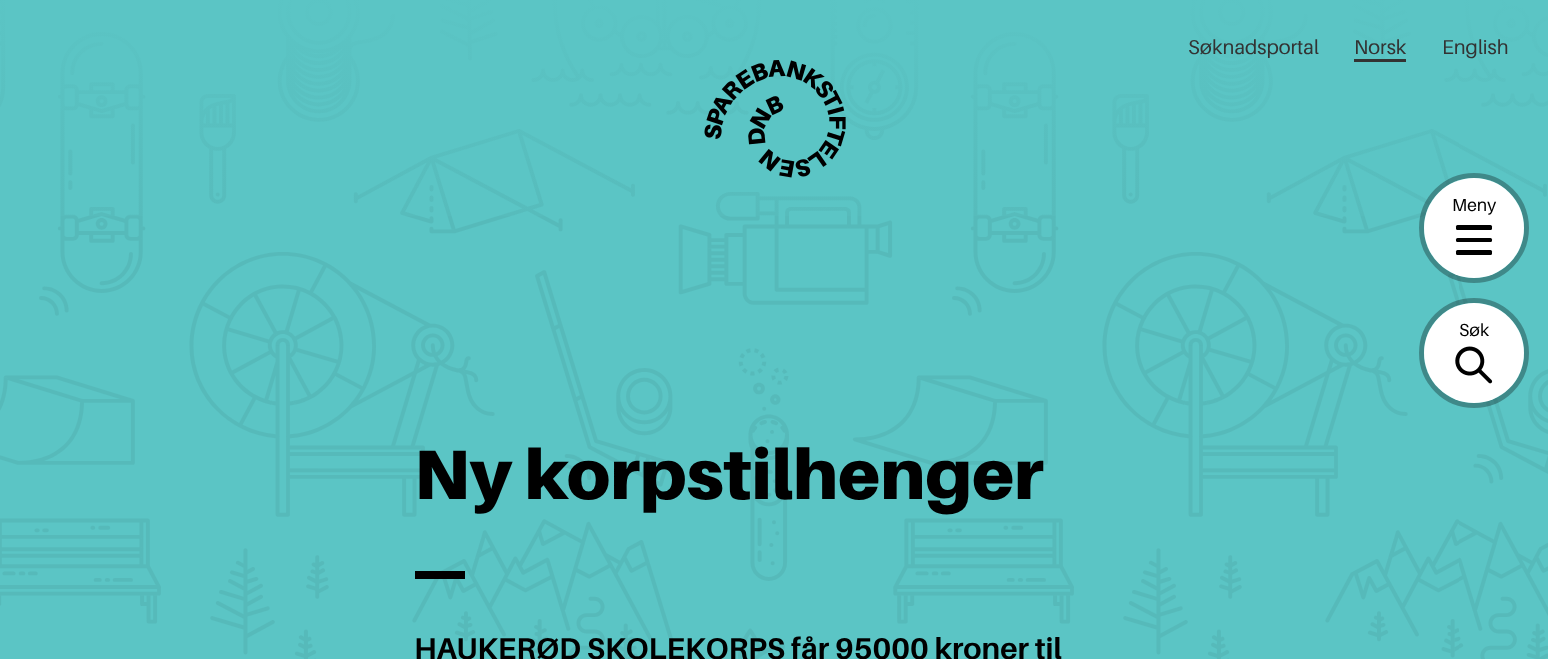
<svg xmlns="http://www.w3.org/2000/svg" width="1548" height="659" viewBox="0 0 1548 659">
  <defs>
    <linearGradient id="g1" gradientUnits="userSpaceOnUse" x1="774" y1="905" x2="774" y2="-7.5"><stop offset="0" stop-color="#5bc5c5"/><stop offset="0.3" stop-color="#5bc5c5" stop-opacity="0"/><stop offset="0.7" stop-color="#5bc5c5" stop-opacity="0"/><stop offset="1" stop-color="#5bc5c5"/></linearGradient>
  </defs>
  <rect width="100%" height="100%" fill="#5bc5c5"/>
  <image x="0" y="0" width="1548" height="659" href="img3.png"/>
  <rect x="0" y="0" width="1548" height="216" fill="url(#g1)"/>
  <text x="1188" y="54" font-family="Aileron" font-size="20" fill="#333333">Søknadsportal</text>
  <text x="1354" y="54" font-family="Aileron" font-size="20" fill="#333333">Norsk</text>
  <rect x="1354" y="59" width="52" height="3" fill="#333333"/>
  <text x="1442" y="54" font-family="Aileron" font-size="20" fill="#333333">English</text>
  <image x="704" y="60" width="142" height="118" href="img1.png"/>
  <circle cx="1474" cy="228" r="52.5" fill="none" stroke="#000000" stroke-opacity="0.3" stroke-width="5"/>
  <circle cx="1474" cy="228" r="50" fill="#ffffff"/>
  <text x="1452" y="211" font-family="Aileron" font-size="17.5" fill="#000000">Meny</text>
  <rect x="1456" y="225" width="36" height="5" rx="1.5" fill="#000000"/>
  <rect x="1456" y="238" width="36" height="4" rx="1.5" fill="#000000"/>
  <rect x="1456" y="250" width="36" height="5" rx="1.5" fill="#000000"/>
  <circle cx="1474" cy="353" r="52.5" fill="none" stroke="#000000" stroke-opacity="0.3" stroke-width="5"/>
  <circle cx="1474" cy="353" r="50" fill="#ffffff"/>
  <text x="1459" y="336" font-family="Aileron" font-size="17.5" fill="#000000">Søk</text>
  <image x="1455" y="346" width="38" height="38" href="img2.png"/>
  <text x="414" y="499" font-family="Aileron" font-size="70" font-weight="900" fill="#000000">Ny korpstilhenger</text>
  <rect x="415" y="571" width="50" height="8" fill="#000000"/>
  <text x="414" y="659" font-family="Aileron" font-size="30" font-weight="bold" fill="#000000">HAUKERØD SKOLEKORPS får 95000 kroner til</text>
</svg>
